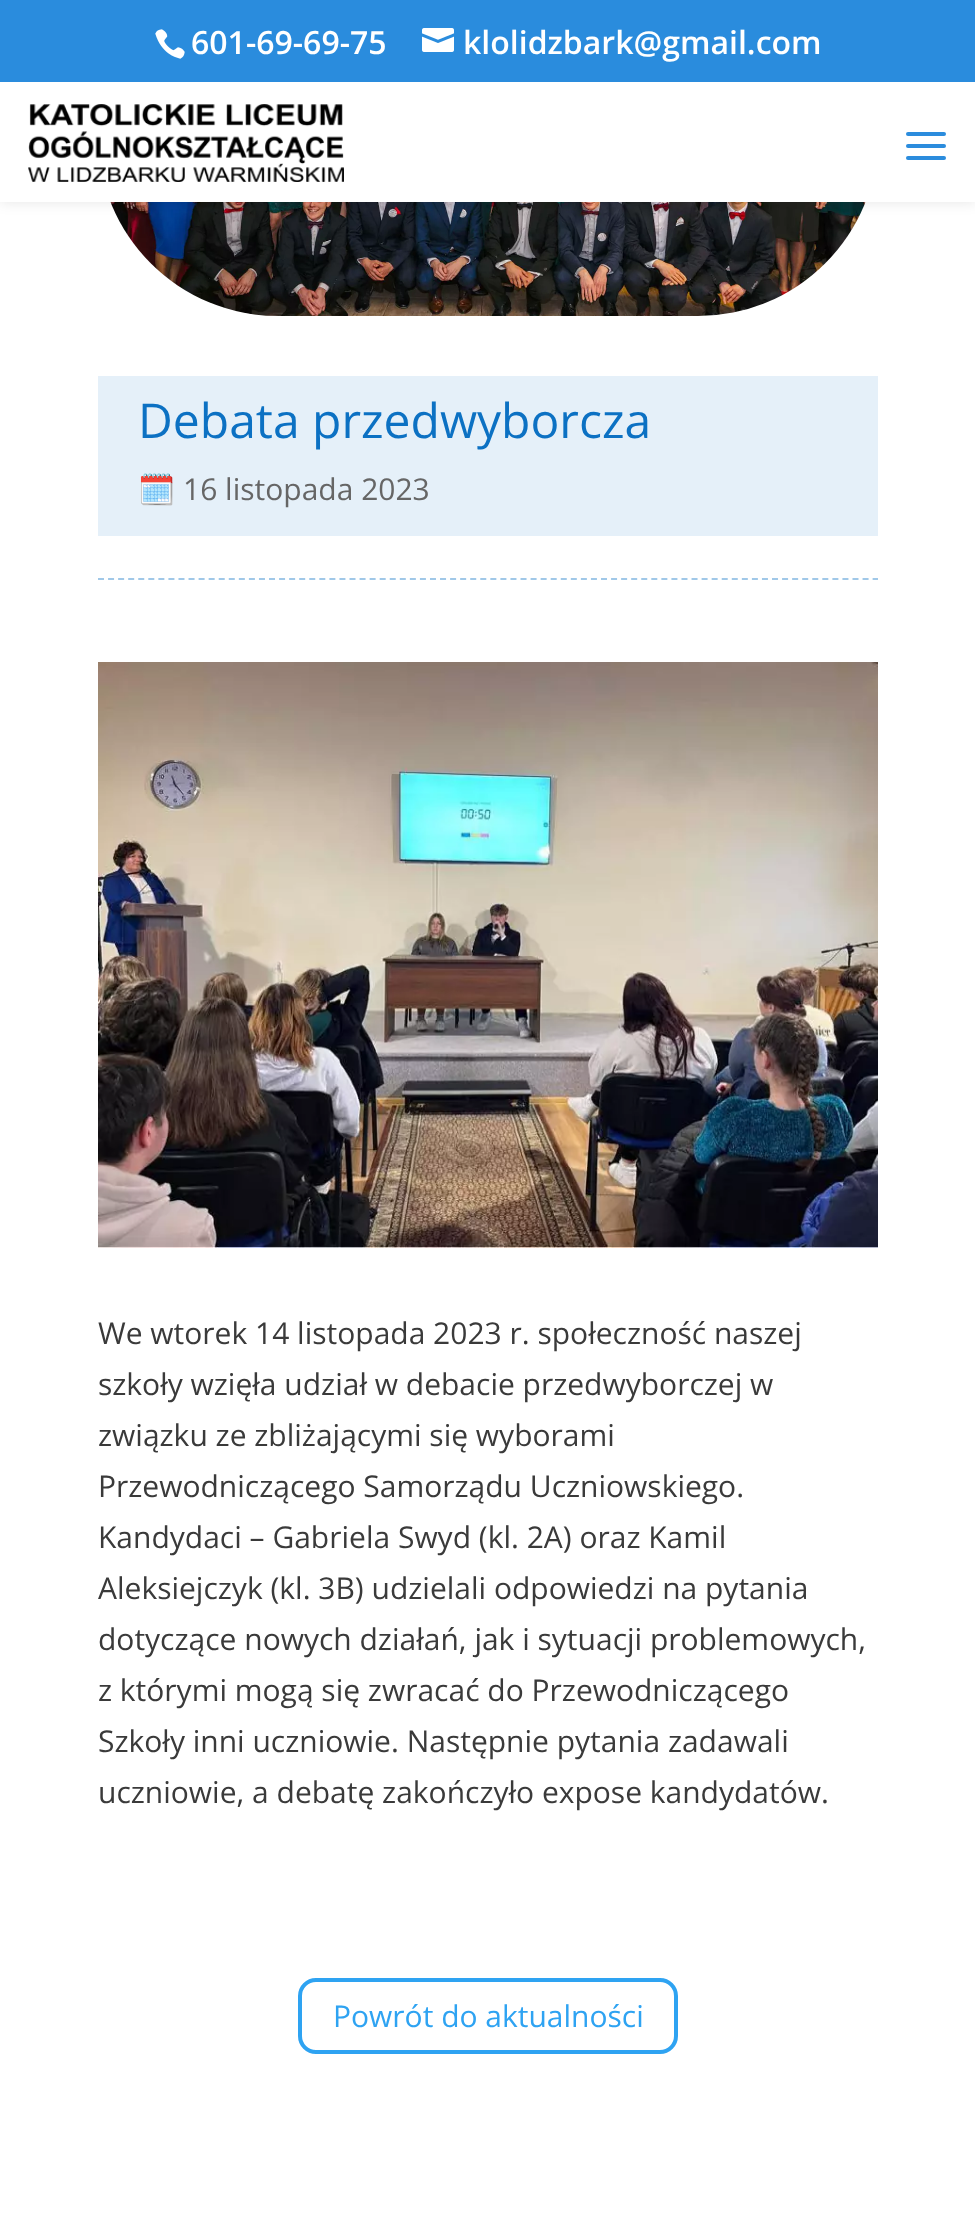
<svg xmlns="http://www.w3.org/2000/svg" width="975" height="2223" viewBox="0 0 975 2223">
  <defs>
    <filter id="blur1" x="-50%" y="-200%" width="200%" height="500%"><feGaussianBlur stdDeviation="7"/></filter>
  </defs>
  <rect width="100%" height="100%" fill="#ffffff"/>
  <image x="110" y="202" width="756" height="114" href="img4.png"/>
  <rect x="0" y="82" width="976" height="120" fill="#000000" fill-opacity="0.1" filter="url(#blur1)"/>
  <rect x="0" y="0" width="975" height="82" fill="#2a8cdd"/>
  <image x="155" y="29" width="30" height="30" href="img1.png"/>
  <text x="191" y="54" font-family="Open Sans" font-size="32" font-weight="600" fill="#ffffff">601-69-69-75</text>
  <image x="422" y="28" width="32" height="24" href="img2.png"/>
  <text x="463" y="54" font-family="Open Sans" font-size="32" font-weight="600" fill="#ffffff">klolidzbark@gmail.com</text>
  <rect x="0" y="82" width="975" height="120" fill="#ffffff"/>
  <image x="28" y="104" width="316" height="78" href="img3.png"/>
  <rect x="906" y="156" width="40" height="4" rx="2" fill="#2b8cdd"/>
  <rect x="906" y="132" width="40" height="4" rx="2" fill="#2b8cdd"/>
  <rect x="906" y="144" width="40" height="4" rx="2" fill="#2b8cdd"/>
  <rect x="98" y="376" width="780" height="160" fill="#e5f0f9"/>
  <text x="138" y="438" font-family="Open Sans" font-size="48" fill="#0c71c3">Debata przedwyborcza</text>
  <text x="138" y="500" font-family="Noto Color Emoji" font-size="30" fill="#666666">🗓️</text>
  <text x="183" y="500" font-family="Open Sans" font-size="30" fill="#666666">16 listopada 2023</text>
  <path d="M98 579H878" fill="none" stroke="#a0c8e8" stroke-width="2" stroke-dasharray="6 4.06"/>
  <image x="98" y="662" width="780" height="586" href="img5.png"/>
  <text x="98" y="1344" font-family="Open Sans" font-size="30" fill="#3a3a3a">We wtorek 14 listopada 2023 r. społeczność naszej</text>
  <text x="98" y="1395" font-family="Open Sans" font-size="30" fill="#3a3a3a">szkoły wzięła udział w debacie przedwyborczej w</text>
  <text x="98" y="1446" font-family="Open Sans" font-size="30" fill="#3a3a3a">związku ze zbliżającymi się wyborami</text>
  <text x="98" y="1497" font-family="Open Sans" font-size="30" fill="#3a3a3a">Przewodniczącego Samorządu Uczniowskiego.</text>
  <text x="98" y="1548" font-family="Open Sans" font-size="30" fill="#3a3a3a">Kandydaci – Gabriela Swyd (kl. 2A) oraz Kamil</text>
  <text x="98" y="1599" font-family="Open Sans" font-size="30" fill="#3a3a3a">Aleksiejczyk (kl. 3B) udzielali odpowiedzi na pytania</text>
  <text x="98" y="1650" font-family="Open Sans" font-size="30" fill="#3a3a3a">dotyczące nowych działań, jak i sytuacji problemowych,</text>
  <text x="98" y="1701" font-family="Open Sans" font-size="30" fill="#3a3a3a">z którymi mogą się zwracać do Przewodniczącego</text>
  <text x="98" y="1752" font-family="Open Sans" font-size="30" fill="#3a3a3a">Szkoły inni uczniowie. Następnie pytania zadawali</text>
  <text x="98" y="1803" font-family="Open Sans" font-size="30" fill="#3a3a3a">uczniowie, a debatę zakończyło expose kandydatów.</text>
  <rect x="300" y="1980" width="376" height="72" rx="16" fill="none" stroke="#2ea3f2" stroke-width="4"/>
  <text x="333" y="2027" font-family="Open Sans" font-size="30" fill="#2ea3f2">Powrót do aktualności</text>
</svg>
